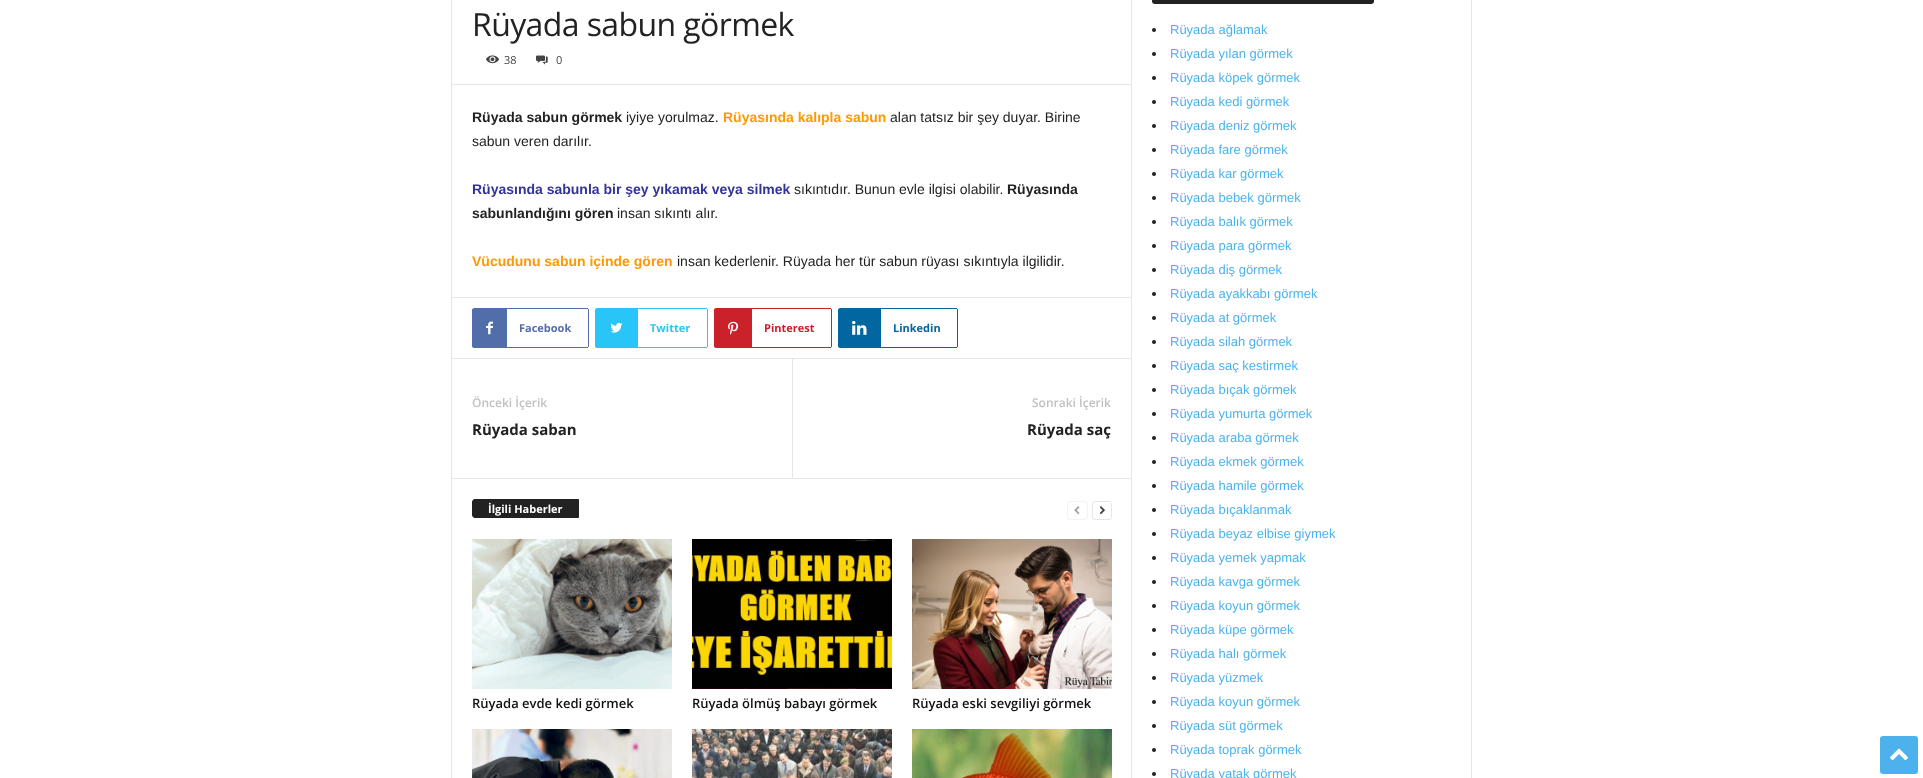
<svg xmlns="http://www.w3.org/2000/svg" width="1923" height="778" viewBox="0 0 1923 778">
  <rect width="100%" height="100%" fill="#ffffff"/>
  <rect x="451" y="0" width="1" height="778" fill="#e6e6e6"/>
  <text x="472" y="36" font-family="Open Sans" font-size="32" letter-spacing="-0.6" fill="#222222">Rüyada sabun görmek</text>
  <image x="486" y="55" width="13" height="9" href="img1.png"/>
  <text x="504" y="64" font-family="Open Sans" font-size="11" fill="#444444">38</text>
  <image x="536" y="55" width="12" height="10" href="img2.png"/>
  <text x="556" y="64" font-family="Open Sans" font-size="11" fill="#444444">0</text>
  <rect x="452" y="84" width="679" height="1" fill="#e6e6e6"/>
  <text x="472" y="122" font-family="Liberation Sans" font-size="14" font-weight="bold" fill="#222222">Rüyada sabun görmek</text>
  <text x="626" y="122" font-family="Liberation Sans" font-size="14" fill="#222222">iyiye yorulmaz.</text>
  <text x="723" y="122" font-family="Liberation Sans" font-size="14" font-weight="bold" fill="#ff9900">Rüyasında kalıpla sabun</text>
  <text x="890" y="122" font-family="Liberation Sans" font-size="14" fill="#222222">alan tatsız bir şey duyar. Birine</text>
  <text x="472" y="146" font-family="Liberation Sans" font-size="14" fill="#222222">sabun veren darılır.</text>
  <text x="472" y="194" font-family="Liberation Sans" font-size="14" font-weight="bold" fill="#333399">Rüyasında sabunla bir şey yıkamak veya silmek</text>
  <text x="794" y="194" font-family="Liberation Sans" font-size="14" fill="#222222">sıkıntıdır. Bunun evle ilgisi olabilir.</text>
  <text x="1007" y="194" font-family="Liberation Sans" font-size="14" font-weight="bold" fill="#222222">Rüyasında</text>
  <text x="472" y="218" font-family="Liberation Sans" font-size="14" font-weight="bold" fill="#222222">sabunlandığını gören</text>
  <text x="617" y="218" font-family="Liberation Sans" font-size="14" fill="#222222">insan sıkıntı alır.</text>
  <text x="472" y="266" font-family="Liberation Sans" font-size="14" font-weight="bold" fill="#ff9900">Vücudunu sabun içinde gören</text>
  <text x="677" y="266" font-family="Liberation Sans" font-size="14" fill="#222222">insan kederlenir. Rüyada her tür sabun rüyası sıkıntıyla ilgilidir.</text>
  <rect x="452" y="297" width="679" height="1" fill="#e6e6e6"/>
  <path d="M474 308H507V348H474C473 348 472 347 472 346V310C472 309 473 308 474 308Z" fill="#516eab"/>
  <image x="486" y="321" width="7" height="14" href="img3.png"/>
  <rect x="507" y="308" width="81" height="1" fill="#516eab"/>
  <rect x="588" y="309" width="1" height="38" fill="#516eab"/>
  <rect x="507" y="347" width="81" height="1" fill="#516eab"/>
  <text x="519" y="332" font-family="Open Sans" font-size="11" font-weight="bold" fill="#516eab">Facebook</text>
  <path d="M597 308H638V348H597C596 348 595 347 595 346V310C595 309 596 308 597 308Z" fill="#29c5f6"/>
  <image x="610" y="322" width="13" height="11" href="img4.png"/>
  <rect x="638" y="308" width="69" height="1" fill="#29c5f6"/>
  <rect x="707" y="309" width="1" height="38" fill="#29c5f6"/>
  <rect x="638" y="347" width="69" height="1" fill="#29c5f6"/>
  <text x="650" y="332" font-family="Open Sans" font-size="11" font-weight="bold" fill="#29c5f6">Twitter</text>
  <path d="M716 308H752V348H716C715 348 714 347 714 346V310C714 309 715 308 716 308Z" fill="#ca212a"/>
  <image x="728" y="321" width="11" height="14" href="img5.png"/>
  <rect x="752" y="308" width="79" height="1" fill="#ca212a"/>
  <rect x="831" y="309" width="1" height="38" fill="#ca212a"/>
  <rect x="752" y="347" width="79" height="1" fill="#ca212a"/>
  <text x="764" y="332" font-family="Open Sans" font-size="11" font-weight="bold" fill="#ca212a">Pinterest</text>
  <path d="M840 308H881V348H840C839 348 838 347 838 346V310C838 309 839 308 840 308Z" fill="#0266a0"/>
  <image x="852" y="321" width="15" height="14" href="img6.png"/>
  <rect x="881" y="308" width="76" height="1" fill="#0266a0"/>
  <rect x="957" y="309" width="1" height="38" fill="#0266a0"/>
  <rect x="881" y="347" width="76" height="1" fill="#0266a0"/>
  <text x="893" y="332" font-family="Open Sans" font-size="11" font-weight="bold" fill="#0266a0">Linkedin</text>
  <rect x="452" y="358" width="679" height="1" fill="#e6e6e6"/>
  <text x="472" y="407" font-family="Open Sans" font-size="12" font-weight="600" fill="#c1c1c1">Önceki İçerik</text>
  <text x="472" y="435" font-family="Open Sans" font-size="15" font-weight="bold" fill="#222222">Rüyada saban</text>
  <rect x="792" y="359" width="1" height="119" fill="#e6e6e6"/>
  <text x="1032" y="407" font-family="Open Sans" font-size="12" font-weight="600" fill="#c1c1c1">Sonraki İçerik</text>
  <text x="1027" y="435" font-family="Open Sans" font-size="15" font-weight="bold" fill="#222222">Rüyada saç</text>
  <rect x="452" y="478" width="679" height="1" fill="#e6e6e6"/>
  <path d="M475 499.5H578.5V517.5H475C473.5 517.5 472.5 516.5 472.5 515V502C472.5 500.5 473.5 499.5 475 499.5Z" fill="#222222" stroke="#222222"/>
  <text x="488" y="513" font-family="Open Sans" font-size="11" font-weight="bold" fill="#ffffff">İlgili Haberler</text>
  <rect x="1067.5" y="501.5" width="20" height="18" rx="2.5" fill="none" stroke="#f3f3f3"/>
  <image x="1074" y="506" width="6" height="9" href="img7.png"/>
  <rect x="1092.5" y="501.5" width="19" height="18" rx="2.5" fill="none" stroke="#e6e6e6"/>
  <image x="1099" y="506" width="6" height="9" href="img8.png"/>
  <image x="472" y="539" width="200" height="150" href="img9.png"/>
  <text x="472" y="708" font-family="Open Sans" font-size="13" font-weight="600" fill="#111111">Rüyada evde kedi görmek</text>
  <image x="692" y="539" width="200" height="150" href="img10.png"/>
  <text x="692" y="708" font-family="Open Sans" font-size="13" font-weight="600" fill="#111111">Rüyada ölmüş babayı görmek</text>
  <image x="912" y="539" width="200" height="150" href="img11.png"/>
  <text x="912" y="708" font-family="Open Sans" font-size="13" font-weight="600" fill="#111111">Rüyada eski sevgiliyi görmek</text>
  <image x="472" y="729" width="200" height="49" href="img12.png"/>
  <image x="692" y="729" width="200" height="49" href="img13.png"/>
  <image x="912" y="729" width="200" height="49" href="img14.png"/>
  <rect x="1131" y="0" width="1" height="778" fill="#e6e6e6"/>
  <rect x="1152" y="-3" width="222" height="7" rx="3" fill="#222222"/>
  <circle cx="1154" cy="30" r="2" fill="#222222"/>
  <text x="1170" y="34" font-family="Liberation Sans" font-size="13" fill="#4db2ec">Rüyada ağlamak</text>
  <circle cx="1154" cy="54" r="2" fill="#222222"/>
  <text x="1170" y="58" font-family="Liberation Sans" font-size="13" fill="#4db2ec">Rüyada yılan görmek</text>
  <circle cx="1154" cy="78" r="2" fill="#222222"/>
  <text x="1170" y="82" font-family="Liberation Sans" font-size="13" fill="#4db2ec">Rüyada köpek görmek</text>
  <circle cx="1154" cy="102" r="2" fill="#222222"/>
  <text x="1170" y="106" font-family="Liberation Sans" font-size="13" fill="#4db2ec">Rüyada kedi görmek</text>
  <circle cx="1154" cy="126" r="2" fill="#222222"/>
  <text x="1170" y="130" font-family="Liberation Sans" font-size="13" fill="#4db2ec">Rüyada deniz görmek</text>
  <circle cx="1154" cy="150" r="2" fill="#222222"/>
  <text x="1170" y="154" font-family="Liberation Sans" font-size="13" fill="#4db2ec">Rüyada fare görmek</text>
  <circle cx="1154" cy="174" r="2" fill="#222222"/>
  <text x="1170" y="178" font-family="Liberation Sans" font-size="13" fill="#4db2ec">Rüyada kar görmek</text>
  <circle cx="1154" cy="198" r="2" fill="#222222"/>
  <text x="1170" y="202" font-family="Liberation Sans" font-size="13" fill="#4db2ec">Rüyada bebek görmek</text>
  <circle cx="1154" cy="222" r="2" fill="#222222"/>
  <text x="1170" y="226" font-family="Liberation Sans" font-size="13" fill="#4db2ec">Rüyada balık görmek</text>
  <circle cx="1154" cy="246" r="2" fill="#222222"/>
  <text x="1170" y="250" font-family="Liberation Sans" font-size="13" fill="#4db2ec">Rüyada para görmek</text>
  <circle cx="1154" cy="270" r="2" fill="#222222"/>
  <text x="1170" y="274" font-family="Liberation Sans" font-size="13" fill="#4db2ec">Rüyada diş görmek</text>
  <circle cx="1154" cy="294" r="2" fill="#222222"/>
  <text x="1170" y="298" font-family="Liberation Sans" font-size="13" fill="#4db2ec">Rüyada ayakkabı görmek</text>
  <circle cx="1154" cy="318" r="2" fill="#222222"/>
  <text x="1170" y="322" font-family="Liberation Sans" font-size="13" fill="#4db2ec">Rüyada at görmek</text>
  <circle cx="1154" cy="342" r="2" fill="#222222"/>
  <text x="1170" y="346" font-family="Liberation Sans" font-size="13" fill="#4db2ec">Rüyada silah görmek</text>
  <circle cx="1154" cy="366" r="2" fill="#222222"/>
  <text x="1170" y="370" font-family="Liberation Sans" font-size="13" fill="#4db2ec">Rüyada saç kestirmek</text>
  <circle cx="1154" cy="390" r="2" fill="#222222"/>
  <text x="1170" y="394" font-family="Liberation Sans" font-size="13" fill="#4db2ec">Rüyada bıçak görmek</text>
  <circle cx="1154" cy="414" r="2" fill="#222222"/>
  <text x="1170" y="418" font-family="Liberation Sans" font-size="13" fill="#4db2ec">Rüyada yumurta görmek</text>
  <circle cx="1154" cy="438" r="2" fill="#222222"/>
  <text x="1170" y="442" font-family="Liberation Sans" font-size="13" fill="#4db2ec">Rüyada araba görmek</text>
  <circle cx="1154" cy="462" r="2" fill="#222222"/>
  <text x="1170" y="466" font-family="Liberation Sans" font-size="13" fill="#4db2ec">Rüyada ekmek görmek</text>
  <circle cx="1154" cy="486" r="2" fill="#222222"/>
  <text x="1170" y="490" font-family="Liberation Sans" font-size="13" fill="#4db2ec">Rüyada hamile görmek</text>
  <circle cx="1154" cy="510" r="2" fill="#222222"/>
  <text x="1170" y="514" font-family="Liberation Sans" font-size="13" fill="#4db2ec">Rüyada bıçaklanmak</text>
  <circle cx="1154" cy="534" r="2" fill="#222222"/>
  <text x="1170" y="538" font-family="Liberation Sans" font-size="13" fill="#4db2ec">Rüyada beyaz elbise giymek</text>
  <circle cx="1154" cy="558" r="2" fill="#222222"/>
  <text x="1170" y="562" font-family="Liberation Sans" font-size="13" fill="#4db2ec">Rüyada yemek yapmak</text>
  <circle cx="1154" cy="582" r="2" fill="#222222"/>
  <text x="1170" y="586" font-family="Liberation Sans" font-size="13" fill="#4db2ec">Rüyada kavga görmek</text>
  <circle cx="1154" cy="606" r="2" fill="#222222"/>
  <text x="1170" y="610" font-family="Liberation Sans" font-size="13" fill="#4db2ec">Rüyada koyun görmek</text>
  <circle cx="1154" cy="630" r="2" fill="#222222"/>
  <text x="1170" y="634" font-family="Liberation Sans" font-size="13" fill="#4db2ec">Rüyada küpe görmek</text>
  <circle cx="1154" cy="654" r="2" fill="#222222"/>
  <text x="1170" y="658" font-family="Liberation Sans" font-size="13" fill="#4db2ec">Rüyada halı görmek</text>
  <circle cx="1154" cy="678" r="2" fill="#222222"/>
  <text x="1170" y="682" font-family="Liberation Sans" font-size="13" fill="#4db2ec">Rüyada yüzmek</text>
  <circle cx="1154" cy="702" r="2" fill="#222222"/>
  <text x="1170" y="706" font-family="Liberation Sans" font-size="13" fill="#4db2ec">Rüyada koyun görmek</text>
  <circle cx="1154" cy="726" r="2" fill="#222222"/>
  <text x="1170" y="730" font-family="Liberation Sans" font-size="13" fill="#4db2ec">Rüyada süt görmek</text>
  <circle cx="1154" cy="750" r="2" fill="#222222"/>
  <text x="1170" y="754" font-family="Liberation Sans" font-size="13" fill="#4db2ec">Rüyada toprak görmek</text>
  <circle cx="1154" cy="774" r="2" fill="#222222"/>
  <text x="1170" y="778" font-family="Liberation Sans" font-size="13" fill="#4db2ec">Rüyada yatak görmek</text>
  <rect x="1471" y="0" width="1" height="778" fill="#e6e6e6"/>
  <rect x="1880" y="736" width="38" height="38" rx="3" fill="#4db2ec"/>
  <image x="1890" y="748" width="18" height="13" href="img15.png"/>
</svg>
